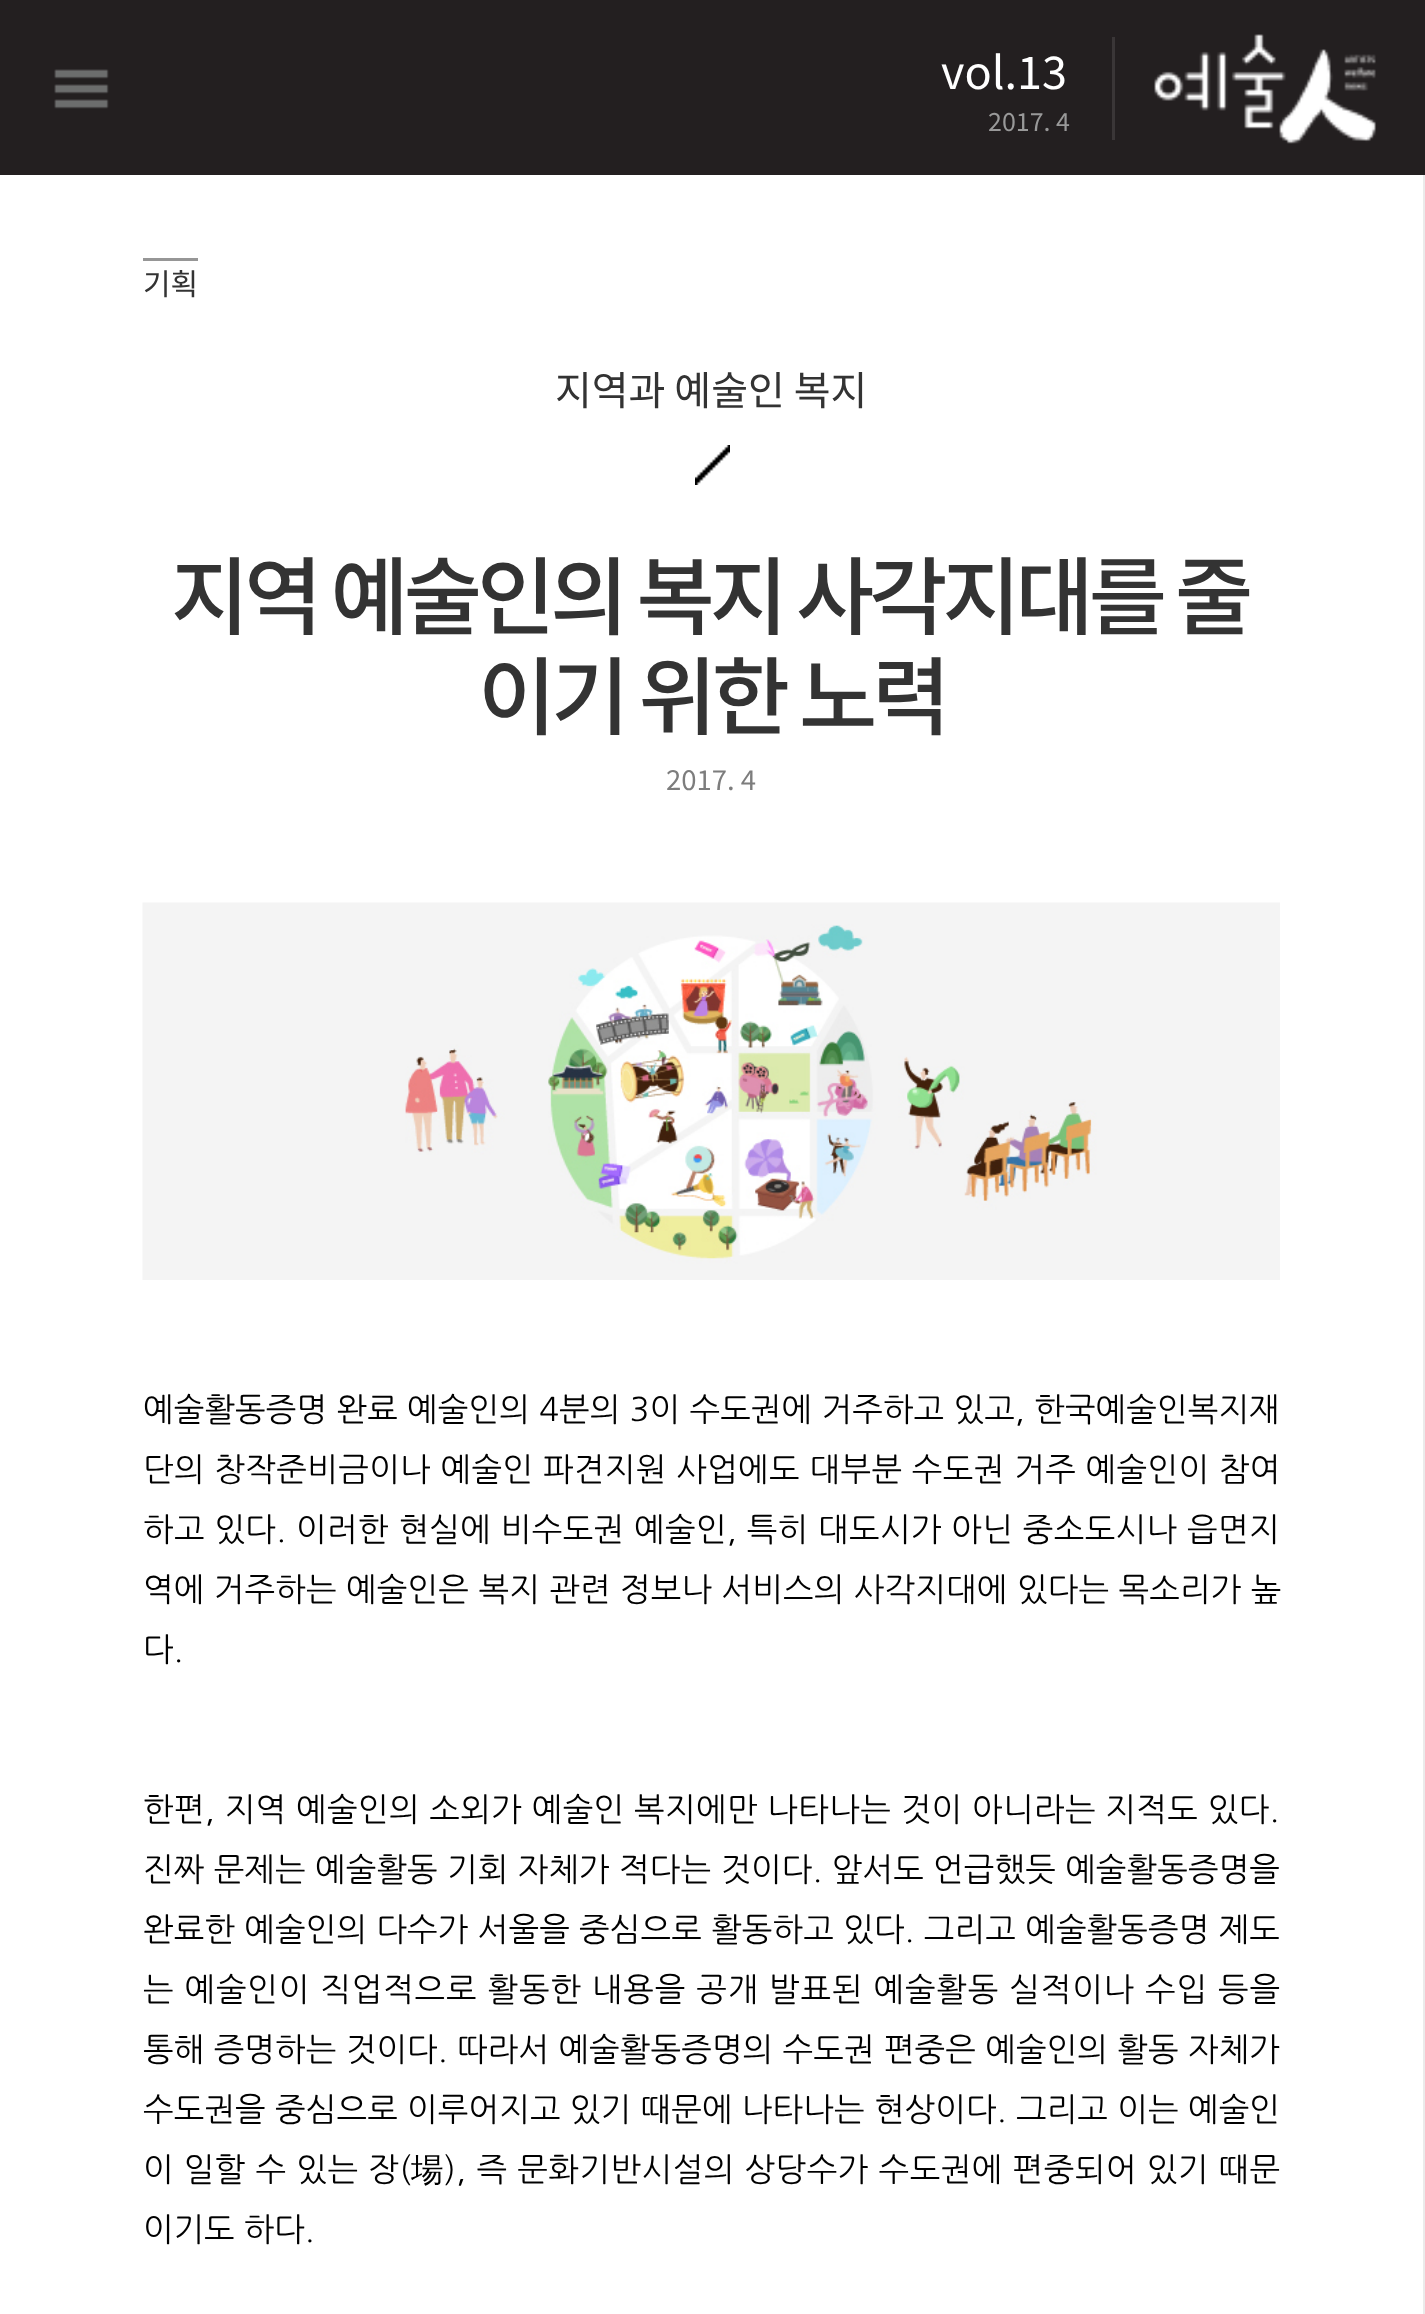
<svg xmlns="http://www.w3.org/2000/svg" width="1425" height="2314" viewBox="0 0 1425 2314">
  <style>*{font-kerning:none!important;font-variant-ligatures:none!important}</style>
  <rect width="100%" height="100%" fill="#ffffff"/>
  <rect x="0" y="0" width="1425" height="175" fill="#231f20"/>
  <image x="54" y="69" width="55" height="40" href="img1.png"/>
  <rect x="1112" y="37" width="3" height="103" fill="#3a3637"/>
  <text x="941" y="89" font-family="Noto Sans KR" font-size="45" fill="#ffffff">vol.13</text>
  <text x="988" y="131" font-family="Noto Sans KR" font-size="25" fill="#999999">2017. 4</text>
  <image x="1154" y="34" width="222" height="110" href="img2.png"/>
  <rect x="1423" y="175" width="2" height="2139" fill="#ebebeb"/>
  <rect x="143" y="258" width="55" height="3" fill="#969696"/>
  <text x="143" y="295" font-family="Noto Sans KR" font-size="30" fill="#333333">기획</text>
  <text x="555" y="405" font-family="Noto Sans KR" font-size="40" fill="#333333">지역과 예술인 복지</text>
  <image x="695" y="445" width="35" height="40" href="img3.png"/>
  <text x="171" y="628" word-spacing="-1" font-family="Noto Sans KR" font-size="85" font-weight="500" letter-spacing="-5" fill="#333333">지역 예술인의 복지 사각지대를 줄</text>
  <text x="478" y="728" font-family="Noto Sans KR" font-size="85" font-weight="500" letter-spacing="-5" fill="#333333">이기 위한 노력</text>
  <text x="666" y="790" font-family="Noto Sans KR" font-size="27.5" fill="#7d7d7d">2017. 4</text>
  <image x="142" y="902" width="1138" height="378" href="img4.png"/>
  <text x="143" y="1421" font-family="NanumGothic" font-size="32.5" letter-spacing="0.15" fill="#000000">예술활동증명 완료 예술인의 4분의 3이 수도권에 거주하고 있고, 한국예술인복지재</text>
  <text x="143" y="1481" font-family="NanumGothic" font-size="32.5" letter-spacing="0.4" fill="#000000">단의 창작준비금이나 예술인 파견지원 사업에도 대부분 수도권 거주 예술인이 참여</text>
  <text x="143" y="1541" font-family="NanumGothic" font-size="32.5" letter-spacing="0.4" fill="#000000">하고 있다. 이러한 현실에 비수도권 예술인, 특히 대도시가 아닌 중소도시나 읍면지</text>
  <text x="143" y="1601" font-family="NanumGothic" font-size="32.5" letter-spacing="0.2" fill="#000000">역에 거주하는 예술인은 복지 관련 정보나 서비스의 사각지대에 있다는 목소리가 높</text>
  <text x="143" y="1661" font-family="NanumGothic" font-size="32.5" fill="#000000">다.</text>
  <text x="143" y="1821" font-family="NanumGothic" font-size="32.5" letter-spacing="0.4" fill="#000000">한편, 지역 예술인의 소외가 예술인 복지에만 나타나는 것이 아니라는 지적도 있다.</text>
  <text x="143" y="1881" font-family="NanumGothic" font-size="32.5" letter-spacing="0.15" fill="#000000">진짜 문제는 예술활동 기회 자체가 적다는 것이다. 앞서도 언급했듯 예술활동증명을</text>
  <text x="143" y="1941" font-family="NanumGothic" font-size="32.5" letter-spacing="0.15" fill="#000000">완료한 예술인의 다수가 서울을 중심으로 활동하고 있다. 그리고 예술활동증명 제도</text>
  <text x="143" y="2001" font-family="NanumGothic" font-size="32.5" letter-spacing="0.9" fill="#000000">는 예술인이 직업적으로 활동한 내용을 공개 발표된 예술활동 실적이나 수입 등을</text>
  <text x="143" y="2061" font-family="NanumGothic" font-size="32.5" letter-spacing="0.15" fill="#000000">통해 증명하는 것이다. 따라서 예술활동증명의 수도권 편중은 예술인의 활동 자체가</text>
  <text x="143" y="2121" font-family="NanumGothic" font-size="32.5" letter-spacing="0.15" fill="#000000">수도권을 중심으로 이루어지고 있기 때문에 나타나는 현상이다. 그리고 이는 예술인</text>
  <text x="143" y="2181" font-family="NanumGothic" font-size="32.5" letter-spacing="0.55" fill="#000000">이 일할 수 있는 장(</text>
  <text x="411" y="2181" font-family="WenQuanYi Zen Hei" font-size="32.5" font-weight="500" letter-spacing="0.55" fill="#000000">場</text>
  <text x="444" y="2181" font-family="NanumGothic" font-size="32.5" letter-spacing="0.55" fill="#000000">), 즉 문화기반시설의 상당수가 수도권에 편중되어 있기 때문</text>
  <text x="143" y="2241" font-family="NanumGothic" font-size="32.5" fill="#000000">이기도 하다.</text>
</svg>
